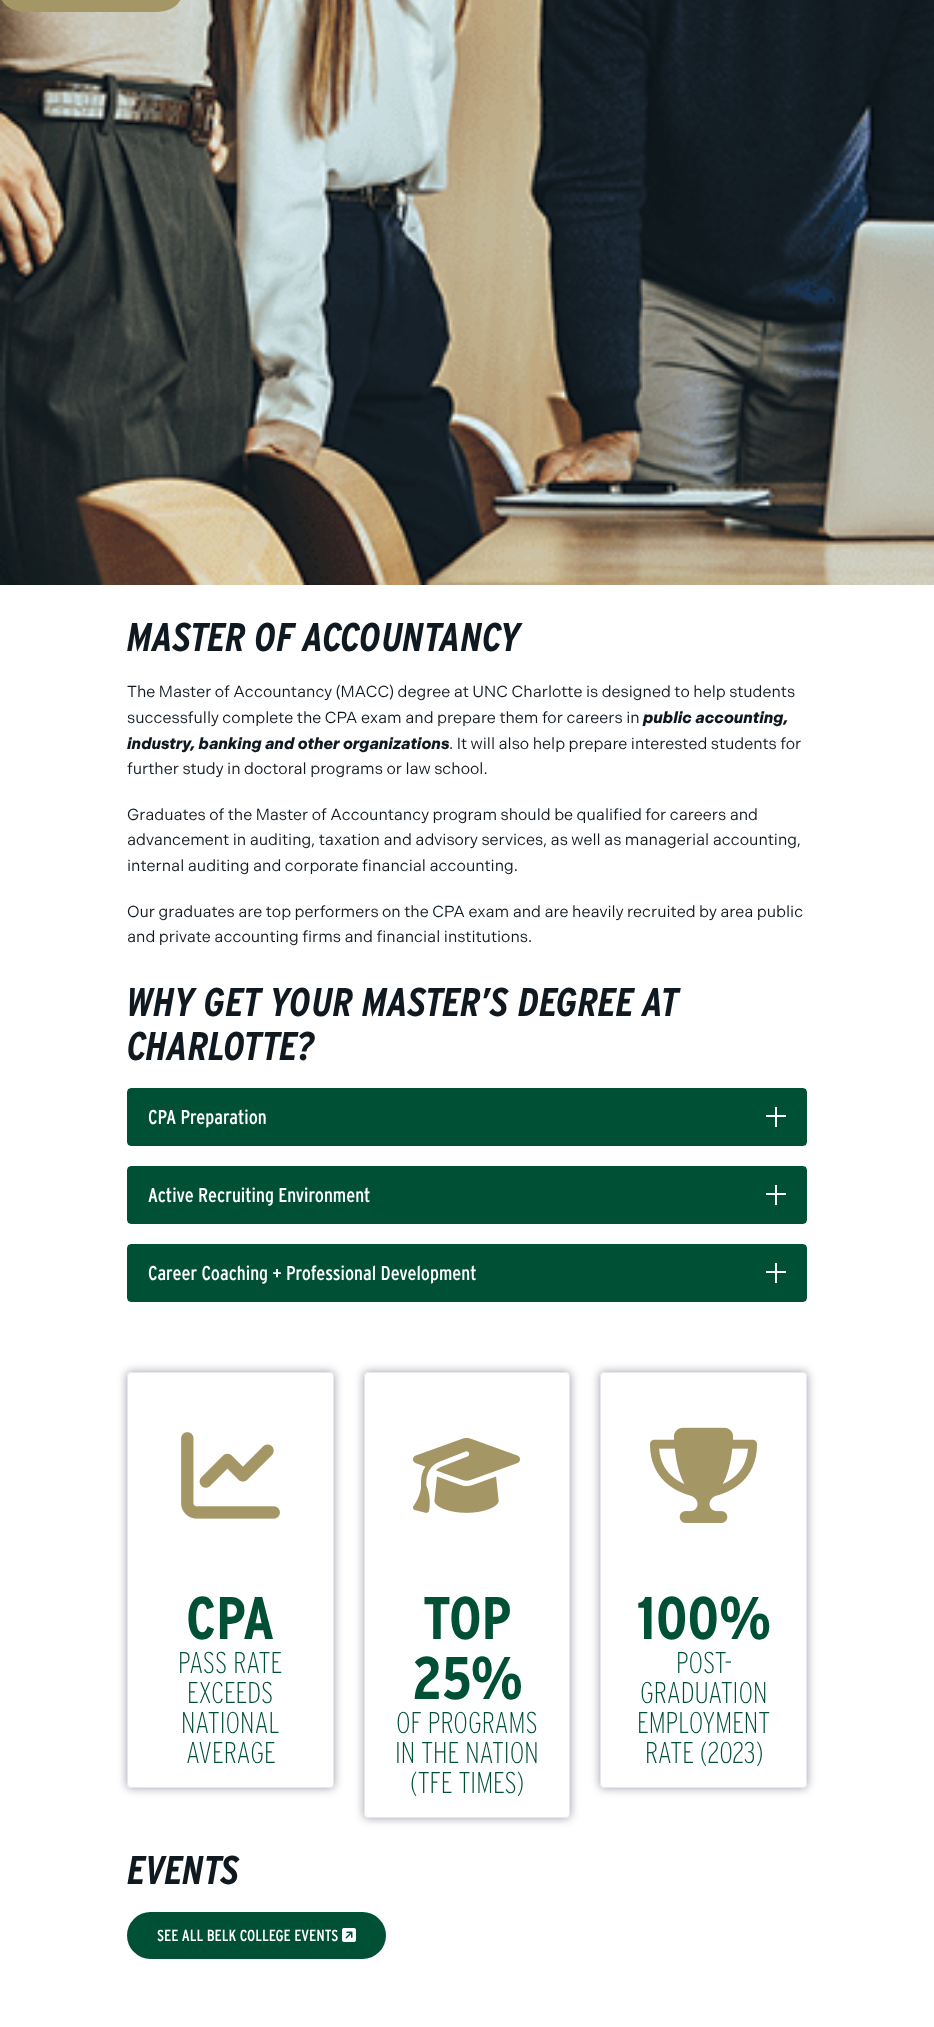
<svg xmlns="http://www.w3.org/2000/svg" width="934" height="2027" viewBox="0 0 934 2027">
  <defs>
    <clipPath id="clip1"><path d="M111 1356H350V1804H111ZM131 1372H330C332 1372 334 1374 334 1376V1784C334 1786 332 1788 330 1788H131C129 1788 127 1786 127 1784V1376C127 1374 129 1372 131 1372Z" clip-rule="evenodd"/></clipPath>
    <filter id="blur1" x="-50%" y="-200%" width="200%" height="500%"><feGaussianBlur stdDeviation="5"/></filter>
    <clipPath id="clip2"><path d="M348 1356H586V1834H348ZM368 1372H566C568 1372 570 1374 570 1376V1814C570 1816 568 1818 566 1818H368C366 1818 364 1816 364 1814V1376C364 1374 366 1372 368 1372Z" clip-rule="evenodd"/></clipPath>
    <clipPath id="clip3"><path d="M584 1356H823V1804H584ZM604 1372H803C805 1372 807 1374 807 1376V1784C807 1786 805 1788 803 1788H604C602 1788 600 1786 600 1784V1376C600 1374 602 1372 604 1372Z" clip-rule="evenodd"/></clipPath>
  </defs>
  <rect width="100%" height="100%" fill="#ffffff"/>
  <image x="0" y="0" width="934" height="585" href="img1.png"/>
  <rect x="0" y="-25" width="182" height="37" rx="25" fill="#a49665"/>
  <text x="127" y="651" font-family="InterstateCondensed" font-size="40" font-weight="bold" font-style="italic" fill="#101820">MASTER OF ACCOUNTANCY</text>
  <text x="127" y="697" font-family="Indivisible" font-size="16" fill="#101820">The Master of Accountancy (MACC) degree at UNC Charlotte is designed to help students</text>
  <text x="127" y="723" font-family="Indivisible" font-size="16" fill="#101820">successfully complete the CPA exam and prepare them for careers in</text>
  <text x="643" y="723" font-family="Indivisible" font-size="16" font-weight="bold" font-style="italic" fill="#101820">public accounting,</text>
  <text x="127" y="749" font-family="Indivisible" font-size="16" font-weight="bold" font-style="italic" fill="#101820">industry, banking and other organizations</text>
  <text x="449" y="749" font-family="Indivisible" font-size="16" fill="#101820">. It will also help prepare interested students for</text>
  <text x="127" y="774" font-family="Indivisible" font-size="16" fill="#101820">further study in doctoral programs or law school.</text>
  <text x="127" y="820" font-family="Indivisible" font-size="16" fill="#101820">Graduates of the Master of Accountancy program should be qualified for careers and</text>
  <text x="127" y="845" font-family="Indivisible" font-size="16" fill="#101820">advancement in auditing, taxation and advisory services, as well as managerial accounting,</text>
  <text x="127" y="871" font-family="Indivisible" font-size="16" fill="#101820">internal auditing and corporate financial accounting.</text>
  <text x="127" y="917" font-family="Indivisible" font-size="16" fill="#101820">Our graduates are top performers on the CPA exam and are heavily recruited by area public</text>
  <text x="127" y="942" font-family="Indivisible" font-size="16" fill="#101820">and private accounting firms and financial institutions.</text>
  <text x="127" y="1016" font-family="InterstateCondensed" font-size="40" font-weight="bold" font-style="italic" fill="#101820">WHY GET YOUR MASTER’S DEGREE AT</text>
  <text x="127" y="1060" font-family="InterstateCondensed" font-size="40" font-weight="bold" font-style="italic" fill="#101820">CHARLOTTE?</text>
  <rect x="127.5" y="1088.5" width="679" height="57" rx="3.5" fill="none" stroke="#005035"/>
  <rect x="128" y="1089" width="678" height="56" fill="#005035"/>
  <text x="148" y="1124" font-family="InterstateCondensed" font-size="20" fill="#ffffff">CPA Preparation</text>
  <rect x="766" y="1115" width="20" height="2" fill="#ffffff"/>
  <rect x="775" y="1107" width="2" height="20" fill="#ffffff"/>
  <rect x="127.5" y="1166.5" width="679" height="57" rx="3.5" fill="none" stroke="#005035"/>
  <rect x="128" y="1167" width="678" height="56" fill="#005035"/>
  <text x="148" y="1202" font-family="InterstateCondensed" font-size="20" fill="#ffffff">Active Recruiting Environment</text>
  <rect x="766" y="1193" width="20" height="2" fill="#ffffff"/>
  <rect x="775" y="1185" width="2" height="20" fill="#ffffff"/>
  <rect x="127.5" y="1244.5" width="679" height="57" rx="3.5" fill="none" stroke="#005035"/>
  <rect x="128" y="1245" width="678" height="56" fill="#005035"/>
  <text x="148" y="1280" font-family="InterstateCondensed" font-size="20" fill="#ffffff">Career Coaching + Professional Development</text>
  <rect x="766" y="1271" width="20" height="2" fill="#ffffff"/>
  <rect x="775" y="1263" width="2" height="20" fill="#ffffff"/>
  <g clip-path="url(#clip1)">
    <rect x="127" y="1372" width="207" height="416" rx="4" fill="#101820" fill-opacity="0.4" filter="url(#blur1)"/>
  </g>
  <rect x="127.5" y="1372.5" width="206" height="415" rx="3.5" fill="none" stroke="#e6e8e9"/>
  <image x="181" y="1432" width="99" height="87" href="img2.png"/>
  <text x="186" y="1639" font-family="InterstateCondensed" font-size="60" font-weight="bold" fill="#005035">CPA</text>
  <text x="178" y="1673" font-family="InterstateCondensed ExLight" font-size="30" font-weight="200" fill="#005035">PASS RATE</text>
  <text x="187" y="1703" font-family="InterstateCondensed ExLight" font-size="30" font-weight="200" fill="#005035">EXCEEDS</text>
  <text x="181" y="1733" font-family="InterstateCondensed ExLight" font-size="30" font-weight="200" fill="#005035">NATIONAL</text>
  <text x="186" y="1763" font-family="InterstateCondensed ExLight" font-size="30" font-weight="200" fill="#005035">AVERAGE</text>
  <g clip-path="url(#clip2)">
    <rect x="364" y="1372" width="206" height="446" rx="4" fill="#101820" fill-opacity="0.4" filter="url(#blur1)"/>
  </g>
  <rect x="364.5" y="1372.5" width="205" height="445" rx="3.5" fill="none" stroke="#e6e8e9"/>
  <image x="413" y="1437" width="107" height="76" href="img3.png"/>
  <text x="423" y="1639" font-family="InterstateCondensed" font-size="60" font-weight="bold" fill="#005035">TOP</text>
  <text x="412" y="1699" font-family="InterstateCondensed" font-size="60" font-weight="bold" fill="#005035">25%</text>
  <text x="396" y="1733" font-family="InterstateCondensed ExLight" font-size="30" font-weight="200" fill="#005035">OF PROGRAMS</text>
  <text x="395" y="1763" font-family="InterstateCondensed ExLight" font-size="30" font-weight="200" fill="#005035">IN THE NATION</text>
  <text x="410" y="1793" font-family="InterstateCondensed ExLight" font-size="30" font-weight="200" fill="#005035">(TFE TIMES)</text>
  <g clip-path="url(#clip3)">
    <rect x="600" y="1372" width="207" height="416" rx="4" fill="#101820" fill-opacity="0.4" filter="url(#blur1)"/>
  </g>
  <rect x="600.5" y="1372.5" width="206" height="415" rx="3.5" fill="none" stroke="#e6e8e9"/>
  <image x="650" y="1427" width="107" height="96" href="img4.png"/>
  <text x="637" y="1639" font-family="InterstateCondensed" font-size="60" font-weight="bold" fill="#005035">100%</text>
  <text x="676" y="1673" font-family="InterstateCondensed ExLight" font-size="30" font-weight="200" fill="#005035">POST-</text>
  <text x="640" y="1703" font-family="InterstateCondensed ExLight" font-size="30" font-weight="200" fill="#005035">GRADUATION</text>
  <text x="637" y="1733" font-family="InterstateCondensed ExLight" font-size="30" font-weight="200" fill="#005035">EMPLOYMENT</text>
  <text x="645" y="1763" font-family="InterstateCondensed ExLight" font-size="30" font-weight="200" fill="#005035">RATE (2023)</text>
  <text x="127" y="1884" font-family="InterstateCondensed" font-size="40" font-weight="bold" font-style="italic" fill="#101820">EVENTS</text>
  <rect x="127" y="1912" width="259" height="47" rx="23.5" fill="#005035"/>
  <text x="157" y="1941" font-family="InterstateCondensed" font-size="16" fill="#ffffff">SEE ALL BELK COLLEGE EVENTS</text>
  <image x="342" y="1928" width="14" height="14" href="img5.png"/>
</svg>
